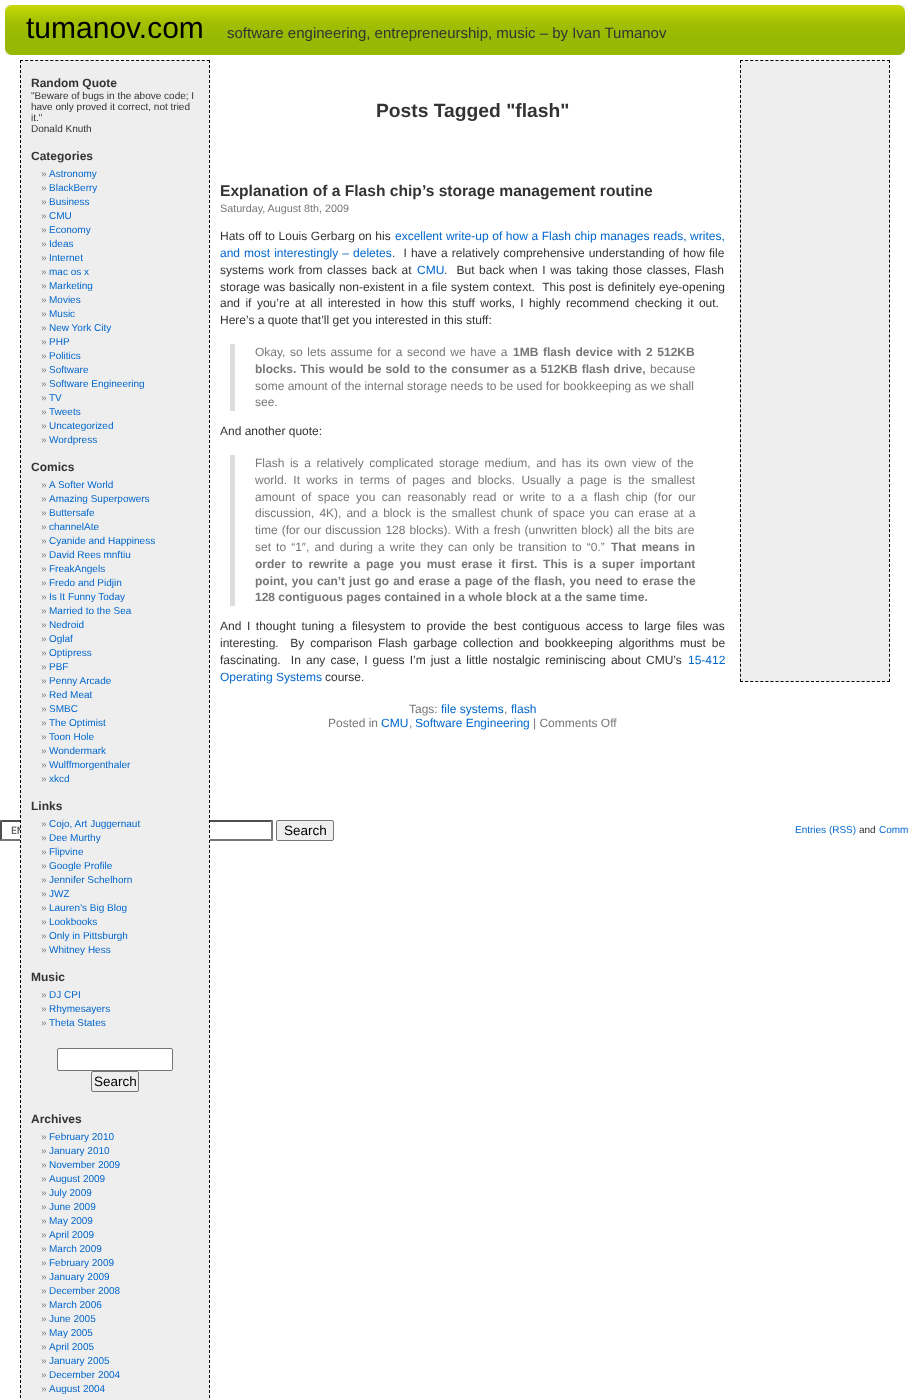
<svg xmlns="http://www.w3.org/2000/svg" width="910" height="1400" viewBox="0 0 910 1400">
  <rect width="100%" height="100%" fill="#ffffff"/>
  <image x="5" y="5" width="11" height="50" href="img1.png"/>
  <image x="895" y="5" width="10" height="50" href="img2.png"/>
  <image x="16" y="5" width="879" height="50" href="img3.png"/>
  <text x="26" y="38" font-family="Liberation Sans" font-size="30" fill="#000000">tumanov.com</text>
  <text x="227" y="38" font-family="Liberation Sans" font-size="15" fill="#333333">software engineering, entrepreneurship, music – by Ivan Tumanov</text>
  <path d="M0 820H273L271 822H2Z" fill="#4f4f4f"/>
  <path d="M273 820V841L271 839V822Z" fill="#767676"/>
  <path d="M273 841H0L2 839H271Z" fill="#767676"/>
  <rect x="20" y="60" width="190" height="1340" fill="#eeeeee"/>
  <path d="M20 60.5H210" fill="none" stroke="#000000" stroke-dasharray="3 2.05"/>
  <path d="M209.5 60V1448" fill="none" stroke="#000000" stroke-dasharray="3 2"/>
  <path d="M20.5 60V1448" fill="none" stroke="#000000" stroke-dasharray="3 2"/>
  <text x="31" y="87" font-family="Liberation Sans" font-size="12" font-weight="bold" fill="#333333">Random Quote</text>
  <text x="31" y="99" font-family="Liberation Sans" font-size="10" fill="#333333">"Beware of bugs in the above code; I</text>
  <text x="31" y="110" font-family="Liberation Sans" font-size="10" fill="#333333">have only proved it correct, not tried</text>
  <text x="31" y="121" font-family="Liberation Sans" font-size="10" fill="#333333">it."</text>
  <text x="31" y="132" font-family="Liberation Sans" font-size="10" fill="#333333">Donald Knuth</text>
  <text x="31" y="160" font-family="Liberation Sans" font-size="12" font-weight="bold" fill="#333333">Categories</text>
  <text x="41" y="177" font-family="Liberation Sans" font-size="10" fill="#777777">»</text>
  <text x="49" y="177" font-family="Liberation Sans" font-size="10" fill="#0066cc">Astronomy</text>
  <text x="41" y="191" font-family="Liberation Sans" font-size="10" fill="#777777">»</text>
  <text x="49" y="191" font-family="Liberation Sans" font-size="10" fill="#0066cc">BlackBerry</text>
  <text x="41" y="205" font-family="Liberation Sans" font-size="10" fill="#777777">»</text>
  <text x="49" y="205" font-family="Liberation Sans" font-size="10" fill="#0066cc">Business</text>
  <text x="41" y="219" font-family="Liberation Sans" font-size="10" fill="#777777">»</text>
  <text x="49" y="219" font-family="Liberation Sans" font-size="10" fill="#0066cc">CMU</text>
  <text x="41" y="233" font-family="Liberation Sans" font-size="10" fill="#777777">»</text>
  <text x="49" y="233" font-family="Liberation Sans" font-size="10" fill="#0066cc">Economy</text>
  <text x="41" y="247" font-family="Liberation Sans" font-size="10" fill="#777777">»</text>
  <text x="49" y="247" font-family="Liberation Sans" font-size="10" fill="#0066cc">Ideas</text>
  <text x="41" y="261" font-family="Liberation Sans" font-size="10" fill="#777777">»</text>
  <text x="49" y="261" font-family="Liberation Sans" font-size="10" fill="#0066cc">Internet</text>
  <text x="41" y="275" font-family="Liberation Sans" font-size="10" fill="#777777">»</text>
  <text x="49" y="275" font-family="Liberation Sans" font-size="10" fill="#0066cc">mac os x</text>
  <text x="41" y="289" font-family="Liberation Sans" font-size="10" fill="#777777">»</text>
  <text x="49" y="289" font-family="Liberation Sans" font-size="10" fill="#0066cc">Marketing</text>
  <text x="41" y="303" font-family="Liberation Sans" font-size="10" fill="#777777">»</text>
  <text x="49" y="303" font-family="Liberation Sans" font-size="10" fill="#0066cc">Movies</text>
  <text x="41" y="317" font-family="Liberation Sans" font-size="10" fill="#777777">»</text>
  <text x="49" y="317" font-family="Liberation Sans" font-size="10" fill="#0066cc">Music</text>
  <text x="41" y="331" font-family="Liberation Sans" font-size="10" fill="#777777">»</text>
  <text x="49" y="331" font-family="Liberation Sans" font-size="10" fill="#0066cc">New York City</text>
  <text x="41" y="345" font-family="Liberation Sans" font-size="10" fill="#777777">»</text>
  <text x="49" y="345" font-family="Liberation Sans" font-size="10" fill="#0066cc">PHP</text>
  <text x="41" y="359" font-family="Liberation Sans" font-size="10" fill="#777777">»</text>
  <text x="49" y="359" font-family="Liberation Sans" font-size="10" fill="#0066cc">Politics</text>
  <text x="41" y="373" font-family="Liberation Sans" font-size="10" fill="#777777">»</text>
  <text x="49" y="373" font-family="Liberation Sans" font-size="10" fill="#0066cc">Software</text>
  <text x="41" y="387" font-family="Liberation Sans" font-size="10" fill="#777777">»</text>
  <text x="49" y="387" font-family="Liberation Sans" font-size="10" fill="#0066cc">Software Engineering</text>
  <text x="41" y="401" font-family="Liberation Sans" font-size="10" fill="#777777">»</text>
  <text x="49" y="401" font-family="Liberation Sans" font-size="10" fill="#0066cc">TV</text>
  <text x="41" y="415" font-family="Liberation Sans" font-size="10" fill="#777777">»</text>
  <text x="49" y="415" font-family="Liberation Sans" font-size="10" fill="#0066cc">Tweets</text>
  <text x="41" y="429" font-family="Liberation Sans" font-size="10" fill="#777777">»</text>
  <text x="49" y="429" font-family="Liberation Sans" font-size="10" fill="#0066cc">Uncategorized</text>
  <text x="41" y="443" font-family="Liberation Sans" font-size="10" fill="#777777">»</text>
  <text x="49" y="443" font-family="Liberation Sans" font-size="10" fill="#0066cc">Wordpress</text>
  <text x="31" y="471" font-family="Liberation Sans" font-size="12" font-weight="bold" fill="#333333">Comics</text>
  <text x="41" y="488" font-family="Liberation Sans" font-size="10" fill="#777777">»</text>
  <text x="49" y="488" font-family="Liberation Sans" font-size="10" fill="#0066cc">A Softer World</text>
  <text x="41" y="502" font-family="Liberation Sans" font-size="10" fill="#777777">»</text>
  <text x="49" y="502" font-family="Liberation Sans" font-size="10" fill="#0066cc">Amazing Superpowers</text>
  <text x="41" y="516" font-family="Liberation Sans" font-size="10" fill="#777777">»</text>
  <text x="49" y="516" font-family="Liberation Sans" font-size="10" fill="#0066cc">Buttersafe</text>
  <text x="41" y="530" font-family="Liberation Sans" font-size="10" fill="#777777">»</text>
  <text x="49" y="530" font-family="Liberation Sans" font-size="10" fill="#0066cc">channelAte</text>
  <text x="41" y="544" font-family="Liberation Sans" font-size="10" fill="#777777">»</text>
  <text x="49" y="544" font-family="Liberation Sans" font-size="10" fill="#0066cc">Cyanide and Happiness</text>
  <text x="41" y="558" font-family="Liberation Sans" font-size="10" fill="#777777">»</text>
  <text x="49" y="558" font-family="Liberation Sans" font-size="10" fill="#0066cc">David Rees mnftiu</text>
  <text x="41" y="572" font-family="Liberation Sans" font-size="10" fill="#777777">»</text>
  <text x="49" y="572" font-family="Liberation Sans" font-size="10" fill="#0066cc">FreakAngels</text>
  <text x="41" y="586" font-family="Liberation Sans" font-size="10" fill="#777777">»</text>
  <text x="49" y="586" font-family="Liberation Sans" font-size="10" fill="#0066cc">Fredo and Pidjin</text>
  <text x="41" y="600" font-family="Liberation Sans" font-size="10" fill="#777777">»</text>
  <text x="49" y="600" font-family="Liberation Sans" font-size="10" fill="#0066cc">Is It Funny Today</text>
  <text x="41" y="614" font-family="Liberation Sans" font-size="10" fill="#777777">»</text>
  <text x="49" y="614" font-family="Liberation Sans" font-size="10" fill="#0066cc">Married to the Sea</text>
  <text x="41" y="628" font-family="Liberation Sans" font-size="10" fill="#777777">»</text>
  <text x="49" y="628" font-family="Liberation Sans" font-size="10" fill="#0066cc">Nedroid</text>
  <text x="41" y="642" font-family="Liberation Sans" font-size="10" fill="#777777">»</text>
  <text x="49" y="642" font-family="Liberation Sans" font-size="10" fill="#0066cc">Oglaf</text>
  <text x="41" y="656" font-family="Liberation Sans" font-size="10" fill="#777777">»</text>
  <text x="49" y="656" font-family="Liberation Sans" font-size="10" fill="#0066cc">Optipress</text>
  <text x="41" y="670" font-family="Liberation Sans" font-size="10" fill="#777777">»</text>
  <text x="49" y="670" font-family="Liberation Sans" font-size="10" fill="#0066cc">PBF</text>
  <text x="41" y="684" font-family="Liberation Sans" font-size="10" fill="#777777">»</text>
  <text x="49" y="684" font-family="Liberation Sans" font-size="10" fill="#0066cc">Penny Arcade</text>
  <text x="41" y="698" font-family="Liberation Sans" font-size="10" fill="#777777">»</text>
  <text x="49" y="698" font-family="Liberation Sans" font-size="10" fill="#0066cc">Red Meat</text>
  <text x="41" y="712" font-family="Liberation Sans" font-size="10" fill="#777777">»</text>
  <text x="49" y="712" font-family="Liberation Sans" font-size="10" fill="#0066cc">SMBC</text>
  <text x="41" y="726" font-family="Liberation Sans" font-size="10" fill="#777777">»</text>
  <text x="49" y="726" font-family="Liberation Sans" font-size="10" fill="#0066cc">The Optimist</text>
  <text x="41" y="740" font-family="Liberation Sans" font-size="10" fill="#777777">»</text>
  <text x="49" y="740" font-family="Liberation Sans" font-size="10" fill="#0066cc">Toon Hole</text>
  <text x="41" y="754" font-family="Liberation Sans" font-size="10" fill="#777777">»</text>
  <text x="49" y="754" font-family="Liberation Sans" font-size="10" fill="#0066cc">Wondermark</text>
  <text x="41" y="768" font-family="Liberation Sans" font-size="10" fill="#777777">»</text>
  <text x="49" y="768" font-family="Liberation Sans" font-size="10" fill="#0066cc">Wulffmorgenthaler</text>
  <text x="41" y="782" font-family="Liberation Sans" font-size="10" fill="#777777">»</text>
  <text x="49" y="782" font-family="Liberation Sans" font-size="10" fill="#0066cc">xkcd</text>
  <text x="31" y="810" font-family="Liberation Sans" font-size="12" font-weight="bold" fill="#333333">Links</text>
  <text x="41" y="827" font-family="Liberation Sans" font-size="10" fill="#777777">»</text>
  <text x="49" y="827" font-family="Liberation Sans" font-size="10" fill="#0066cc">Cojo, Art Juggernaut</text>
  <text x="41" y="841" font-family="Liberation Sans" font-size="10" fill="#777777">»</text>
  <text x="49" y="841" font-family="Liberation Sans" font-size="10" fill="#0066cc">Dee Murthy</text>
  <text x="41" y="855" font-family="Liberation Sans" font-size="10" fill="#777777">»</text>
  <text x="49" y="855" font-family="Liberation Sans" font-size="10" fill="#0066cc">Flipvine</text>
  <text x="41" y="869" font-family="Liberation Sans" font-size="10" fill="#777777">»</text>
  <text x="49" y="869" font-family="Liberation Sans" font-size="10" fill="#0066cc">Google Profile</text>
  <text x="41" y="883" font-family="Liberation Sans" font-size="10" fill="#777777">»</text>
  <text x="49" y="883" font-family="Liberation Sans" font-size="10" fill="#0066cc">Jennifer Schelhorn</text>
  <text x="41" y="897" font-family="Liberation Sans" font-size="10" fill="#777777">»</text>
  <text x="49" y="897" font-family="Liberation Sans" font-size="10" fill="#0066cc">JWZ</text>
  <text x="41" y="911" font-family="Liberation Sans" font-size="10" fill="#777777">»</text>
  <text x="49" y="911" font-family="Liberation Sans" font-size="10" fill="#0066cc">Lauren's Big Blog</text>
  <text x="41" y="925" font-family="Liberation Sans" font-size="10" fill="#777777">»</text>
  <text x="49" y="925" font-family="Liberation Sans" font-size="10" fill="#0066cc">Lookbooks</text>
  <text x="41" y="939" font-family="Liberation Sans" font-size="10" fill="#777777">»</text>
  <text x="49" y="939" font-family="Liberation Sans" font-size="10" fill="#0066cc">Only in Pittsburgh</text>
  <text x="41" y="953" font-family="Liberation Sans" font-size="10" fill="#777777">»</text>
  <text x="49" y="953" font-family="Liberation Sans" font-size="10" fill="#0066cc">Whitney Hess</text>
  <text x="31" y="981" font-family="Liberation Sans" font-size="12" font-weight="bold" fill="#333333">Music</text>
  <text x="41" y="998" font-family="Liberation Sans" font-size="10" fill="#777777">»</text>
  <text x="49" y="998" font-family="Liberation Sans" font-size="10" fill="#0066cc">DJ CPI</text>
  <text x="41" y="1012" font-family="Liberation Sans" font-size="10" fill="#777777">»</text>
  <text x="49" y="1012" font-family="Liberation Sans" font-size="10" fill="#0066cc">Rhymesayers</text>
  <text x="41" y="1026" font-family="Liberation Sans" font-size="10" fill="#777777">»</text>
  <text x="49" y="1026" font-family="Liberation Sans" font-size="10" fill="#0066cc">Theta States</text>
  <rect x="57.5" y="1048.5" width="115" height="22" rx="1.5" fill="#ffffff" stroke="#767676"/>
  <rect x="91.5" y="1071.5" width="47" height="20" rx="1.5" fill="none" stroke="#767676"/>
  <text x="94" y="1086" font-family="Liberation Sans" font-size="13.5" fill="#000000">Search</text>
  <text x="31" y="1123" font-family="Liberation Sans" font-size="12" font-weight="bold" fill="#333333">Archives</text>
  <text x="41" y="1140" font-family="Liberation Sans" font-size="10" fill="#777777">»</text>
  <text x="49" y="1140" font-family="Liberation Sans" font-size="10" fill="#0066cc">February 2010</text>
  <text x="41" y="1154" font-family="Liberation Sans" font-size="10" fill="#777777">»</text>
  <text x="49" y="1154" font-family="Liberation Sans" font-size="10" fill="#0066cc">January 2010</text>
  <text x="41" y="1168" font-family="Liberation Sans" font-size="10" fill="#777777">»</text>
  <text x="49" y="1168" font-family="Liberation Sans" font-size="10" fill="#0066cc">November 2009</text>
  <text x="41" y="1182" font-family="Liberation Sans" font-size="10" fill="#777777">»</text>
  <text x="49" y="1182" font-family="Liberation Sans" font-size="10" fill="#0066cc">August 2009</text>
  <text x="41" y="1196" font-family="Liberation Sans" font-size="10" fill="#777777">»</text>
  <text x="49" y="1196" font-family="Liberation Sans" font-size="10" fill="#0066cc">July 2009</text>
  <text x="41" y="1210" font-family="Liberation Sans" font-size="10" fill="#777777">»</text>
  <text x="49" y="1210" font-family="Liberation Sans" font-size="10" fill="#0066cc">June 2009</text>
  <text x="41" y="1224" font-family="Liberation Sans" font-size="10" fill="#777777">»</text>
  <text x="49" y="1224" font-family="Liberation Sans" font-size="10" fill="#0066cc">May 2009</text>
  <text x="41" y="1238" font-family="Liberation Sans" font-size="10" fill="#777777">»</text>
  <text x="49" y="1238" font-family="Liberation Sans" font-size="10" fill="#0066cc">April 2009</text>
  <text x="41" y="1252" font-family="Liberation Sans" font-size="10" fill="#777777">»</text>
  <text x="49" y="1252" font-family="Liberation Sans" font-size="10" fill="#0066cc">March 2009</text>
  <text x="41" y="1266" font-family="Liberation Sans" font-size="10" fill="#777777">»</text>
  <text x="49" y="1266" font-family="Liberation Sans" font-size="10" fill="#0066cc">February 2009</text>
  <text x="41" y="1280" font-family="Liberation Sans" font-size="10" fill="#777777">»</text>
  <text x="49" y="1280" font-family="Liberation Sans" font-size="10" fill="#0066cc">January 2009</text>
  <text x="41" y="1294" font-family="Liberation Sans" font-size="10" fill="#777777">»</text>
  <text x="49" y="1294" font-family="Liberation Sans" font-size="10" fill="#0066cc">December 2008</text>
  <text x="41" y="1308" font-family="Liberation Sans" font-size="10" fill="#777777">»</text>
  <text x="49" y="1308" font-family="Liberation Sans" font-size="10" fill="#0066cc">March 2006</text>
  <text x="41" y="1322" font-family="Liberation Sans" font-size="10" fill="#777777">»</text>
  <text x="49" y="1322" font-family="Liberation Sans" font-size="10" fill="#0066cc">June 2005</text>
  <text x="41" y="1336" font-family="Liberation Sans" font-size="10" fill="#777777">»</text>
  <text x="49" y="1336" font-family="Liberation Sans" font-size="10" fill="#0066cc">May 2005</text>
  <text x="41" y="1350" font-family="Liberation Sans" font-size="10" fill="#777777">»</text>
  <text x="49" y="1350" font-family="Liberation Sans" font-size="10" fill="#0066cc">April 2005</text>
  <text x="41" y="1364" font-family="Liberation Sans" font-size="10" fill="#777777">»</text>
  <text x="49" y="1364" font-family="Liberation Sans" font-size="10" fill="#0066cc">January 2005</text>
  <text x="41" y="1378" font-family="Liberation Sans" font-size="10" fill="#777777">»</text>
  <text x="49" y="1378" font-family="Liberation Sans" font-size="10" fill="#0066cc">December 2004</text>
  <text x="41" y="1392" font-family="Liberation Sans" font-size="10" fill="#777777">»</text>
  <text x="49" y="1392" font-family="Liberation Sans" font-size="10" fill="#0066cc">August 2004</text>
  <text x="376" y="117" font-family="Liberation Sans" font-size="19.25" font-weight="bold" fill="#333333">Posts Tagged "flash"</text>
  <text x="220" y="196" font-family="Liberation Sans" font-size="15.6" font-weight="bold" fill="#333333">Explanation of a Flash chip’s storage management routine</text>
  <text x="220" y="212" font-family="Liberation Sans" font-size="10.75" fill="#777777">Saturday, August 8th, 2009</text>
  <text x="220" y="240" word-spacing="0.25" font-family="Liberation Sans" font-size="12" fill="#333333">Hats off to Louis Gerbarg on his</text>
  <text x="395" y="240" word-spacing="0.25" font-family="Liberation Sans" font-size="12" fill="#0066cc">excellent write-up of how a Flash chip manages reads, writes,</text>
  <text x="220" y="257" word-spacing="0.75" font-family="Liberation Sans" font-size="12" fill="#0066cc">and most interestingly – deletes</text>
  <text x="392" y="257" word-spacing="0.75" font-family="Liberation Sans" font-size="12" fill="#333333" xml:space="preserve">.  I have a relatively comprehensive understanding of how file</text>
  <text x="220" y="274" word-spacing="1.25" font-family="Liberation Sans" font-size="12" fill="#333333">systems work from classes back at</text>
  <text x="417" y="274" font-family="Liberation Sans" font-size="12" fill="#0066cc">CMU</text>
  <text x="444" y="274" word-spacing="1.25" font-family="Liberation Sans" font-size="12" fill="#333333" xml:space="preserve">.  But back when I was taking those classes, Flash</text>
  <text x="220" y="291" word-spacing="0.5" font-family="Liberation Sans" font-size="12" fill="#333333" xml:space="preserve">storage was basically non-existent in a file system context.  This post is definitely eye-opening</text>
  <text x="220" y="307" word-spacing="2.1" font-family="Liberation Sans" font-size="12" fill="#333333">and if you’re at all interested in how this stuff works, I highly recommend checking it out.</text>
  <text x="220" y="324" font-family="Liberation Sans" font-size="12" fill="#333333">Here’s a quote that’ll get you interested in this stuff:</text>
  <rect x="230" y="344" width="5" height="67" fill="#dddddd"/>
  <text x="255" y="356" word-spacing="1.25" font-family="Liberation Sans" font-size="12" fill="#777777">Okay, so lets assume for a second we have a</text>
  <text x="513" y="356" word-spacing="1.25" font-family="Liberation Sans" font-size="12" font-weight="bold" fill="#777777">1MB flash device with 2 512KB</text>
  <text x="255" y="373" word-spacing="0.6" font-family="Liberation Sans" font-size="12" font-weight="bold" fill="#777777">blocks. This would be sold to the consumer as a 512KB flash drive,</text>
  <text x="650" y="373" font-family="Liberation Sans" font-size="12" fill="#777777">because</text>
  <text x="255" y="390" font-family="Liberation Sans" font-size="12" fill="#777777">some amount of the internal storage needs to be used for bookkeeping as we shall</text>
  <text x="255" y="406" font-family="Liberation Sans" font-size="12" fill="#777777">see.</text>
  <text x="220" y="435" font-family="Liberation Sans" font-size="12" fill="#333333">And another quote:</text>
  <rect x="230" y="455" width="5" height="151" fill="#dddddd"/>
  <text x="255" y="467" word-spacing="2.25" font-family="Liberation Sans" font-size="12" fill="#777777">Flash is a relatively complicated storage medium, and has its own view of the</text>
  <text x="255" y="484" word-spacing="3" font-family="Liberation Sans" font-size="12" fill="#777777">world. It works in terms of pages and blocks. Usually a page is the smallest</text>
  <text x="255" y="501" word-spacing="3" font-family="Liberation Sans" font-size="12" fill="#777777">amount of space you can reasonably read or write to a a flash chip (for our</text>
  <text x="255" y="517" word-spacing="1.7" font-family="Liberation Sans" font-size="12" fill="#777777">discussion, 4K), and a block is the smallest chunk of space you can erase at a</text>
  <text x="255" y="534" word-spacing="0.75" font-family="Liberation Sans" font-size="12" fill="#777777">time (for our discussion 128 blocks). With a fresh (unwritten block) all the bits are</text>
  <text x="255" y="551" word-spacing="1.75" font-family="Liberation Sans" font-size="12" fill="#777777">set to “1″, and during a write they can only be transition to “0.”</text>
  <text x="611" y="551" word-spacing="1.75" font-family="Liberation Sans" font-size="12" font-weight="bold" fill="#777777">That means in</text>
  <text x="255" y="568" word-spacing="2.4" font-family="Liberation Sans" font-size="12" font-weight="bold" fill="#777777">order to rewrite a page you must erase it first. This is a super important</text>
  <text x="255" y="585" word-spacing="0.7" font-family="Liberation Sans" font-size="12" font-weight="bold" fill="#777777">point, you can’t just go and erase a page of the flash, you need to erase the</text>
  <text x="255" y="601" font-family="Liberation Sans" font-size="12" font-weight="bold" fill="#777777">128 contiguous pages contained in a whole block at a the same time.</text>
  <text x="220" y="630" word-spacing="2.25" font-family="Liberation Sans" font-size="12" fill="#333333">And I thought tuning a filesystem to provide the best contiguous access to large files was</text>
  <text x="220" y="647" word-spacing="2.5" font-family="Liberation Sans" font-size="12" fill="#333333" xml:space="preserve">interesting.  By comparison Flash garbage collection and bookkeeping algorithms must be</text>
  <text x="220" y="664" word-spacing="1.75" font-family="Liberation Sans" font-size="12" fill="#333333" xml:space="preserve">fascinating.  In any case, I guess I’m just a little nostalgic reminiscing about CMU’s</text>
  <text x="688" y="664" font-family="Liberation Sans" font-size="12" fill="#0066cc">15-412</text>
  <text x="220" y="681" font-family="Liberation Sans" font-size="12" fill="#0066cc">Operating Systems</text>
  <text x="325" y="681" font-family="Liberation Sans" font-size="12" fill="#333333">course.</text>
  <text x="409" y="713" font-family="Liberation Sans" font-size="12" fill="#777777">Tags:</text>
  <text x="441" y="713" font-family="Liberation Sans" font-size="12" fill="#0066cc">file systems</text>
  <text x="504" y="713" font-family="Liberation Sans" font-size="12" fill="#777777">,</text>
  <text x="511" y="713" font-family="Liberation Sans" font-size="12" fill="#0066cc">flash</text>
  <text x="328" y="727" font-family="Liberation Sans" font-size="12" fill="#777777">Posted in</text>
  <text x="381" y="727" font-family="Liberation Sans" font-size="12" fill="#0066cc">CMU</text>
  <text x="409" y="727" font-family="Liberation Sans" font-size="12" fill="#777777">,</text>
  <text x="415" y="727" font-family="Liberation Sans" font-size="12" fill="#0066cc">Software Engineering</text>
  <text x="533" y="727" font-family="Liberation Sans" font-size="12" fill="#777777">| Comments Off</text>
  <rect x="740" y="60" width="150" height="622" fill="#eeeeee"/>
  <path d="M740 60.5H890" fill="none" stroke="#000000" stroke-dasharray="3 2.07"/>
  <path d="M889.5 60V682" fill="none" stroke="#000000" stroke-dasharray="3 1.99"/>
  <path d="M740 681.5H890" fill="none" stroke="#000000" stroke-dasharray="3 2.07"/>
  <path d="M740.5 60V682" fill="none" stroke="#000000" stroke-dasharray="3 1.99"/>
  <image x="11" y="826" width="9" height="8" href="img4.png"/>
  <path d="M0 841V820L2 822V839Z" fill="#4f4f4f"/>
  <rect x="276.5" y="820.5" width="57" height="20" rx="1.5" fill="#efefef" stroke="#767676"/>
  <text x="284" y="835" font-family="Liberation Sans" font-size="13.5" fill="#000000">Search</text>
  <text x="795" y="833" font-family="Liberation Sans" font-size="10" fill="#0066cc">Entries (RSS)</text>
  <text x="859" y="833" font-family="Liberation Sans" font-size="10" fill="#333333">and</text>
  <text x="879" y="833" font-family="Liberation Sans" font-size="10" fill="#0066cc">Comm</text>
</svg>
